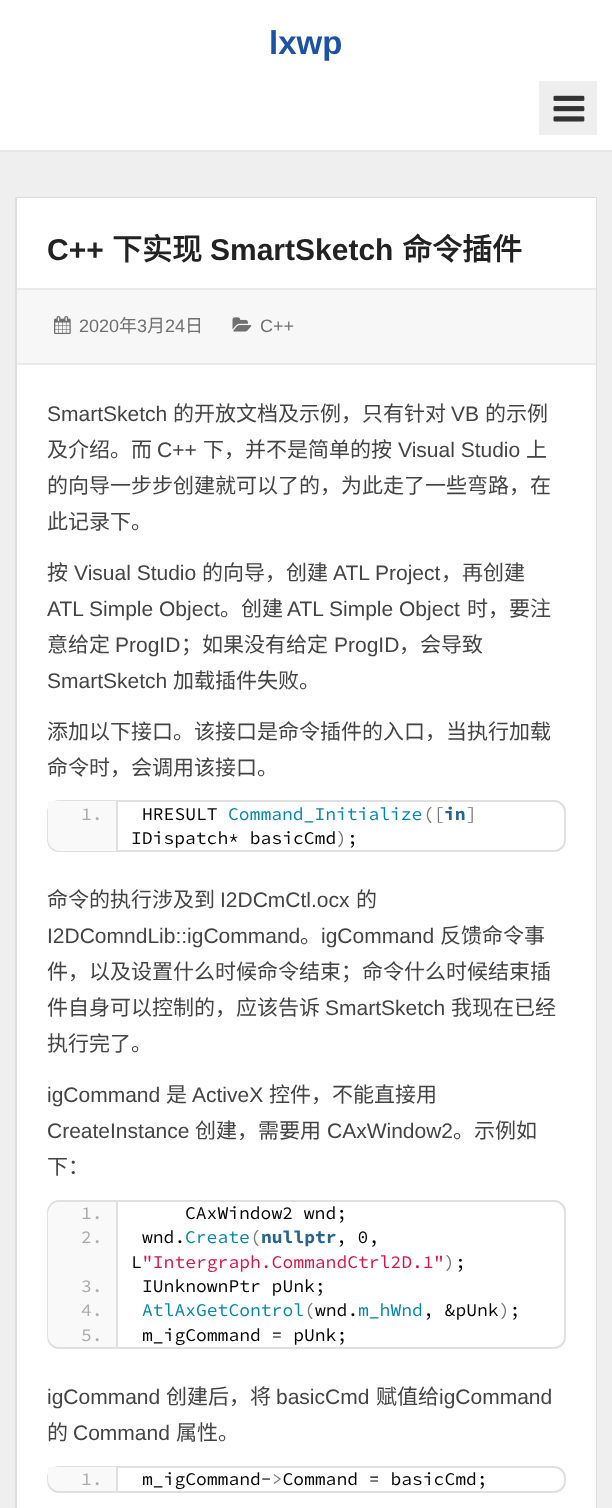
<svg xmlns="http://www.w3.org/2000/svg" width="612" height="1508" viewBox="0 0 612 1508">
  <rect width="100%" height="100%" fill="#efefef"/>
  <rect x="0" y="0" width="612" height="150" fill="#ffffff"/>
  <rect x="0" y="150" width="612" height="2" fill="#e5e5e5"/>
  <text x="269" y="54" font-family="Liberation Sans" font-size="33" font-weight="bold" fill="#1b52a7">lxwp</text>
  <rect x="539" y="81" width="58" height="54" fill="#eeeeee"/>
  <image x="553" y="95" width="32" height="27" href="img1.png"/>
  <rect x="16" y="198" width="580" height="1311" fill="none" stroke="#dedede" stroke-width="2"/>
  <rect x="17" y="198" width="579" height="1310" fill="#ffffff"/>
  <text x="47" y="260" font-family="Liberation Sans" font-size="30" font-weight="bold" fill="#222222">C++</text>
  <text x="112" y="260" font-family="Noto Sans CJK SC" font-size="30" font-weight="bold" fill="#222222">下实现</text>
  <text x="210" y="260" font-family="Liberation Sans" font-size="30" font-weight="bold" fill="#222222">SmartSketch</text>
  <text x="402" y="260" font-family="Noto Sans CJK SC" font-size="30" font-weight="bold" fill="#222222">命令插件</text>
  <rect x="17" y="290" width="579" height="73" fill="#f7f7f7"/>
  <rect x="17" y="288" width="579" height="2" fill="#eaeaea"/>
  <rect x="17" y="363" width="579" height="2" fill="#eaeaea"/>
  <image x="54" y="316" width="17" height="19" href="img2.png"/>
  <text x="79" y="332" font-family="Liberation Sans" font-size="18" fill="#707070">2020</text>
  <text x="119" y="332" font-family="Noto Sans CJK SC" font-size="18" fill="#707070">年</text>
  <text x="137" y="332" font-family="Liberation Sans" font-size="18" fill="#707070">3</text>
  <text x="147" y="332" font-family="Noto Sans CJK SC" font-size="18" fill="#707070">月</text>
  <text x="165" y="332" font-family="Liberation Sans" font-size="18" fill="#707070">24</text>
  <text x="185" y="332" font-family="Noto Sans CJK SC" font-size="18" fill="#707070">日</text>
  <image x="232" y="317" width="20" height="15" href="img3.png"/>
  <text x="260" y="332" font-family="Liberation Sans" font-size="18" fill="#707070">C++</text>
  <text x="47" y="421" font-family="Liberation Sans" font-size="21" fill="#444444">SmartSketch</text>
  <text x="173" y="421" font-family="Noto Sans CJK SC" font-size="21" fill="#444444">的开放文档及示例，只有针对</text>
  <text x="451" y="421" font-family="Liberation Sans" font-size="21" fill="#444444">VB</text>
  <text x="485" y="421" font-family="Noto Sans CJK SC" font-size="21" fill="#444444">的示例</text>
  <text x="47" y="457" font-family="Noto Sans CJK SC" font-size="21" fill="#444444">及介绍。而</text>
  <text x="157" y="457" font-family="Liberation Sans" font-size="21" fill="#444444">C++</text>
  <text x="203" y="457" font-family="Noto Sans CJK SC" font-size="21" fill="#444444">下，并不是简单的按</text>
  <text x="398" y="457" font-family="Liberation Sans" font-size="21" fill="#444444">Visual Studio</text>
  <text x="526" y="457" font-family="Noto Sans CJK SC" font-size="21" fill="#444444">上</text>
  <text x="47" y="493" font-family="Noto Sans CJK SC" font-size="21" fill="#444444">的向导一步步创建就可以了的，为此走了一些弯路，在</text>
  <text x="47" y="529" font-family="Noto Sans CJK SC" font-size="21" fill="#444444">此记录下。</text>
  <text x="47" y="580" font-family="Noto Sans CJK SC" font-size="21" fill="#444444">按</text>
  <text x="74" y="580" font-family="Liberation Sans" font-size="21" fill="#444444">Visual Studio</text>
  <text x="202" y="580" font-family="Noto Sans CJK SC" font-size="21" fill="#444444">的向导，创建</text>
  <text x="333" y="580" font-family="Liberation Sans" font-size="21" fill="#444444">ATL Project</text>
  <text x="441" y="580" font-family="Noto Sans CJK SC" font-size="21" fill="#444444">，再创建</text>
  <text x="47" y="616" font-family="Liberation Sans" font-size="21" fill="#444444">ATL Simple Object</text>
  <text x="220" y="616" font-family="Noto Sans CJK SC" font-size="21" fill="#444444">。创建</text>
  <text x="287" y="616" font-family="Liberation Sans" font-size="21" fill="#444444">ATL Simple Object</text>
  <text x="467" y="616" font-family="Noto Sans CJK SC" font-size="21" fill="#444444">时，要注</text>
  <text x="47" y="652" font-family="Noto Sans CJK SC" font-size="21" fill="#444444">意给定</text>
  <text x="115" y="652" font-family="Liberation Sans" font-size="21" fill="#444444">ProgID</text>
  <text x="181" y="652" font-family="Noto Sans CJK SC" font-size="21" fill="#444444">；如果没有给定</text>
  <text x="334" y="652" font-family="Liberation Sans" font-size="21" fill="#444444">ProgID</text>
  <text x="399" y="652" font-family="Noto Sans CJK SC" font-size="21" fill="#444444">，会导致</text>
  <text x="47" y="688" font-family="Liberation Sans" font-size="21" fill="#444444">SmartSketch</text>
  <text x="173" y="688" font-family="Noto Sans CJK SC" font-size="21" fill="#444444">加载插件失败。</text>
  <text x="47" y="739" font-family="Noto Sans CJK SC" font-size="21" fill="#444444">添加以下接口。该接口是命令插件的入口，当执行加载</text>
  <text x="47" y="775" font-family="Noto Sans CJK SC" font-size="21" fill="#444444">命令时，会调用该接口。</text>
  <rect x="48" y="801" width="517" height="50" rx="11" fill="none" stroke="#e0e0e0" stroke-width="2"/>
  <path d="M48 801H116V851H60C53.5 851 48 845.5 48 839Z" fill="#f9f9f9"/>
  <rect x="116" y="801" width="2" height="50" fill="#e0e0e0"/>
  <text x="81" y="820" font-family="Source Code Pro" font-size="18" fill="#aaaaaa">1.</text>
  <text x="142" y="820" font-family="Source Code Pro" font-size="18" fill="#000000">HRESULT</text>
  <text x="228" y="820" font-family="Source Code Pro" font-size="18" fill="#0086b3">Command_Initialize</text>
  <text x="423" y="820" font-family="Source Code Pro" font-size="18" fill="#777777">([</text>
  <text x="444" y="820" font-family="Source Code Pro" font-size="18" font-weight="bold" fill="#286491">in</text>
  <text x="466" y="820" font-family="Source Code Pro" font-size="18" fill="#777777">]</text>
  <text x="131" y="844" font-family="Source Code Pro" font-size="18" fill="#000000">IDispatch* basicCmd ;</text>
  <text x="336" y="844" font-family="Source Code Pro" font-size="18" fill="#777777">)</text>
  <text x="47" y="907" font-family="Noto Sans CJK SC" font-size="21" fill="#444444">命令的执行涉及到</text>
  <text x="220" y="907" font-family="Liberation Sans" font-size="21" fill="#444444">I2DCmCtl.ocx</text>
  <text x="356" y="907" font-family="Noto Sans CJK SC" font-size="21" fill="#444444">的</text>
  <text x="47" y="943" font-family="Liberation Sans" font-size="21" fill="#444444">I2DComndLib::igCommand</text>
  <text x="300" y="943" font-family="Noto Sans CJK SC" font-size="21" fill="#444444">。</text>
  <text x="321" y="943" font-family="Liberation Sans" font-size="21" fill="#444444">igCommand</text>
  <text x="440" y="943" font-family="Noto Sans CJK SC" font-size="21" fill="#444444">反馈命令事</text>
  <text x="47" y="979" font-family="Noto Sans CJK SC" font-size="21" fill="#444444">件，以及设置什么时候命令结束；命令什么时候结束插</text>
  <text x="47" y="1015" font-family="Noto Sans CJK SC" font-size="21" fill="#444444">件自身可以控制的，应该告诉</text>
  <text x="325" y="1015" font-family="Liberation Sans" font-size="21" fill="#444444">SmartSketch</text>
  <text x="451" y="1015" font-family="Noto Sans CJK SC" font-size="21" fill="#444444">我现在已经</text>
  <text x="47" y="1051" font-family="Noto Sans CJK SC" font-size="21" fill="#444444">执行完了。</text>
  <text x="47" y="1102" font-family="Liberation Sans" font-size="21" fill="#444444">igCommand</text>
  <text x="166" y="1102" font-family="Noto Sans CJK SC" font-size="21" fill="#444444">是</text>
  <text x="192" y="1102" font-family="Liberation Sans" font-size="21" fill="#444444">ActiveX</text>
  <text x="269" y="1102" font-family="Noto Sans CJK SC" font-size="21" fill="#444444">控件，不能直接用</text>
  <text x="47" y="1138" font-family="Liberation Sans" font-size="21" fill="#444444">CreateInstance</text>
  <text x="195" y="1138" font-family="Noto Sans CJK SC" font-size="21" fill="#444444">创建，需要用</text>
  <text x="327" y="1138" font-family="Liberation Sans" font-size="21" fill="#444444">CAxWindow2</text>
  <text x="453" y="1138" font-family="Noto Sans CJK SC" font-size="21" fill="#444444">。示例如</text>
  <text x="47" y="1174" font-family="Noto Sans CJK SC" font-size="21" fill="#444444">下：</text>
  <rect x="48" y="1201" width="517" height="147" rx="11" fill="none" stroke="#e0e0e0" stroke-width="2"/>
  <path d="M60 1202H116V1226H48V1214C48 1207.5 53.5 1202 60 1202Z" fill="#f9f9f9"/>
  <text x="81" y="1219" font-family="Source Code Pro" font-size="18" fill="#aaaaaa">1.</text>
  <text x="185" y="1219" font-family="Source Code Pro" font-size="18" fill="#000000">CAxWindow2 wnd;</text>
  <rect x="48" y="1226" width="68" height="97" fill="#f9f9f9"/>
  <text x="81" y="1243" font-family="Source Code Pro" font-size="18" fill="#aaaaaa">2.</text>
  <text x="142" y="1243" font-family="Source Code Pro" font-size="18" fill="#000000">wnd.</text>
  <text x="185" y="1243" font-family="Source Code Pro" font-size="18" fill="#0086b3">Create</text>
  <text x="250" y="1243" font-family="Source Code Pro" font-size="18" fill="#777777">(</text>
  <text x="261" y="1243" font-family="Source Code Pro" font-size="18" font-weight="bold" fill="#286491">nullptr</text>
  <text x="336" y="1243" font-family="Source Code Pro" font-size="18" fill="#000000">, 0,</text>
  <text x="131" y="1268" font-family="Source Code Pro" font-size="18" fill="#000000">L</text>
  <text x="142" y="1268" font-family="Source Code Pro" font-size="18" fill="#dd1144">"Intergraph.CommandCtrl2D.1"</text>
  <text x="444" y="1268" font-family="Source Code Pro" font-size="18" fill="#777777">)</text>
  <text x="455" y="1268" font-family="Source Code Pro" font-size="18" fill="#000000">;</text>
  <text x="81" y="1292" font-family="Source Code Pro" font-size="18" fill="#aaaaaa">3.</text>
  <text x="142" y="1292" font-family="Source Code Pro" font-size="18" fill="#000000">IUnknownPtr pUnk;</text>
  <text x="81" y="1316" font-family="Source Code Pro" font-size="18" fill="#aaaaaa">4.</text>
  <text x="142" y="1316" font-family="Source Code Pro" font-size="18" fill="#0086b3">AtlAxGetControl</text>
  <text x="304" y="1316" font-family="Source Code Pro" font-size="18" fill="#777777">(</text>
  <text x="315" y="1316" font-family="Source Code Pro" font-size="18" fill="#000000">wnd.</text>
  <text x="358" y="1316" font-family="Source Code Pro" font-size="18" fill="#0086b3">m_hWnd</text>
  <text x="423" y="1316" font-family="Source Code Pro" font-size="18" fill="#000000">, &amp;pUnk ;</text>
  <text x="499" y="1316" font-family="Source Code Pro" font-size="18" fill="#777777">)</text>
  <path d="M48 1323H116V1347H60C53.5 1347 48 1341.5 48 1335Z" fill="#f9f9f9"/>
  <rect x="116" y="1202" width="2" height="145" fill="#e0e0e0"/>
  <text x="81" y="1341" font-family="Source Code Pro" font-size="18" fill="#aaaaaa">5.</text>
  <text x="142" y="1341" font-family="Source Code Pro" font-size="18" fill="#000000">m_igCommand = pUnk;</text>
  <text x="47" y="1404" font-family="Liberation Sans" font-size="21" fill="#444444">igCommand</text>
  <text x="166" y="1404" font-family="Noto Sans CJK SC" font-size="21" fill="#444444">创建后，将</text>
  <text x="276" y="1404" font-family="Liberation Sans" font-size="21" fill="#444444">basicCmd</text>
  <text x="376" y="1404" font-family="Noto Sans CJK SC" font-size="21" fill="#444444">赋值给</text>
  <text x="439" y="1404" font-family="Liberation Sans" font-size="21" fill="#444444">igCommand</text>
  <text x="47" y="1440" font-family="Noto Sans CJK SC" font-size="21" fill="#444444">的</text>
  <text x="73" y="1440" font-family="Liberation Sans" font-size="21" fill="#444444">Command</text>
  <text x="176" y="1440" font-family="Noto Sans CJK SC" font-size="21" fill="#444444">属性。</text>
  <rect x="48" y="1467" width="517" height="25" rx="11" fill="none" stroke="#e0e0e0" stroke-width="2"/>
  <path d="M48 1467H116V1491H60C53.5 1491 48 1485.5 48 1479Z" fill="#f9f9f9"/>
  <rect x="116" y="1467" width="2" height="24" fill="#e0e0e0"/>
  <text x="81" y="1485" font-family="Source Code Pro" font-size="18" fill="#aaaaaa">1.</text>
  <text x="142" y="1485" font-family="Source Code Pro" font-size="18" fill="#000000">m_igCommand- Command = basicCmd;</text>
  <text x="272" y="1485" font-family="Source Code Pro" font-size="18" fill="#777777">&gt;</text>
</svg>
